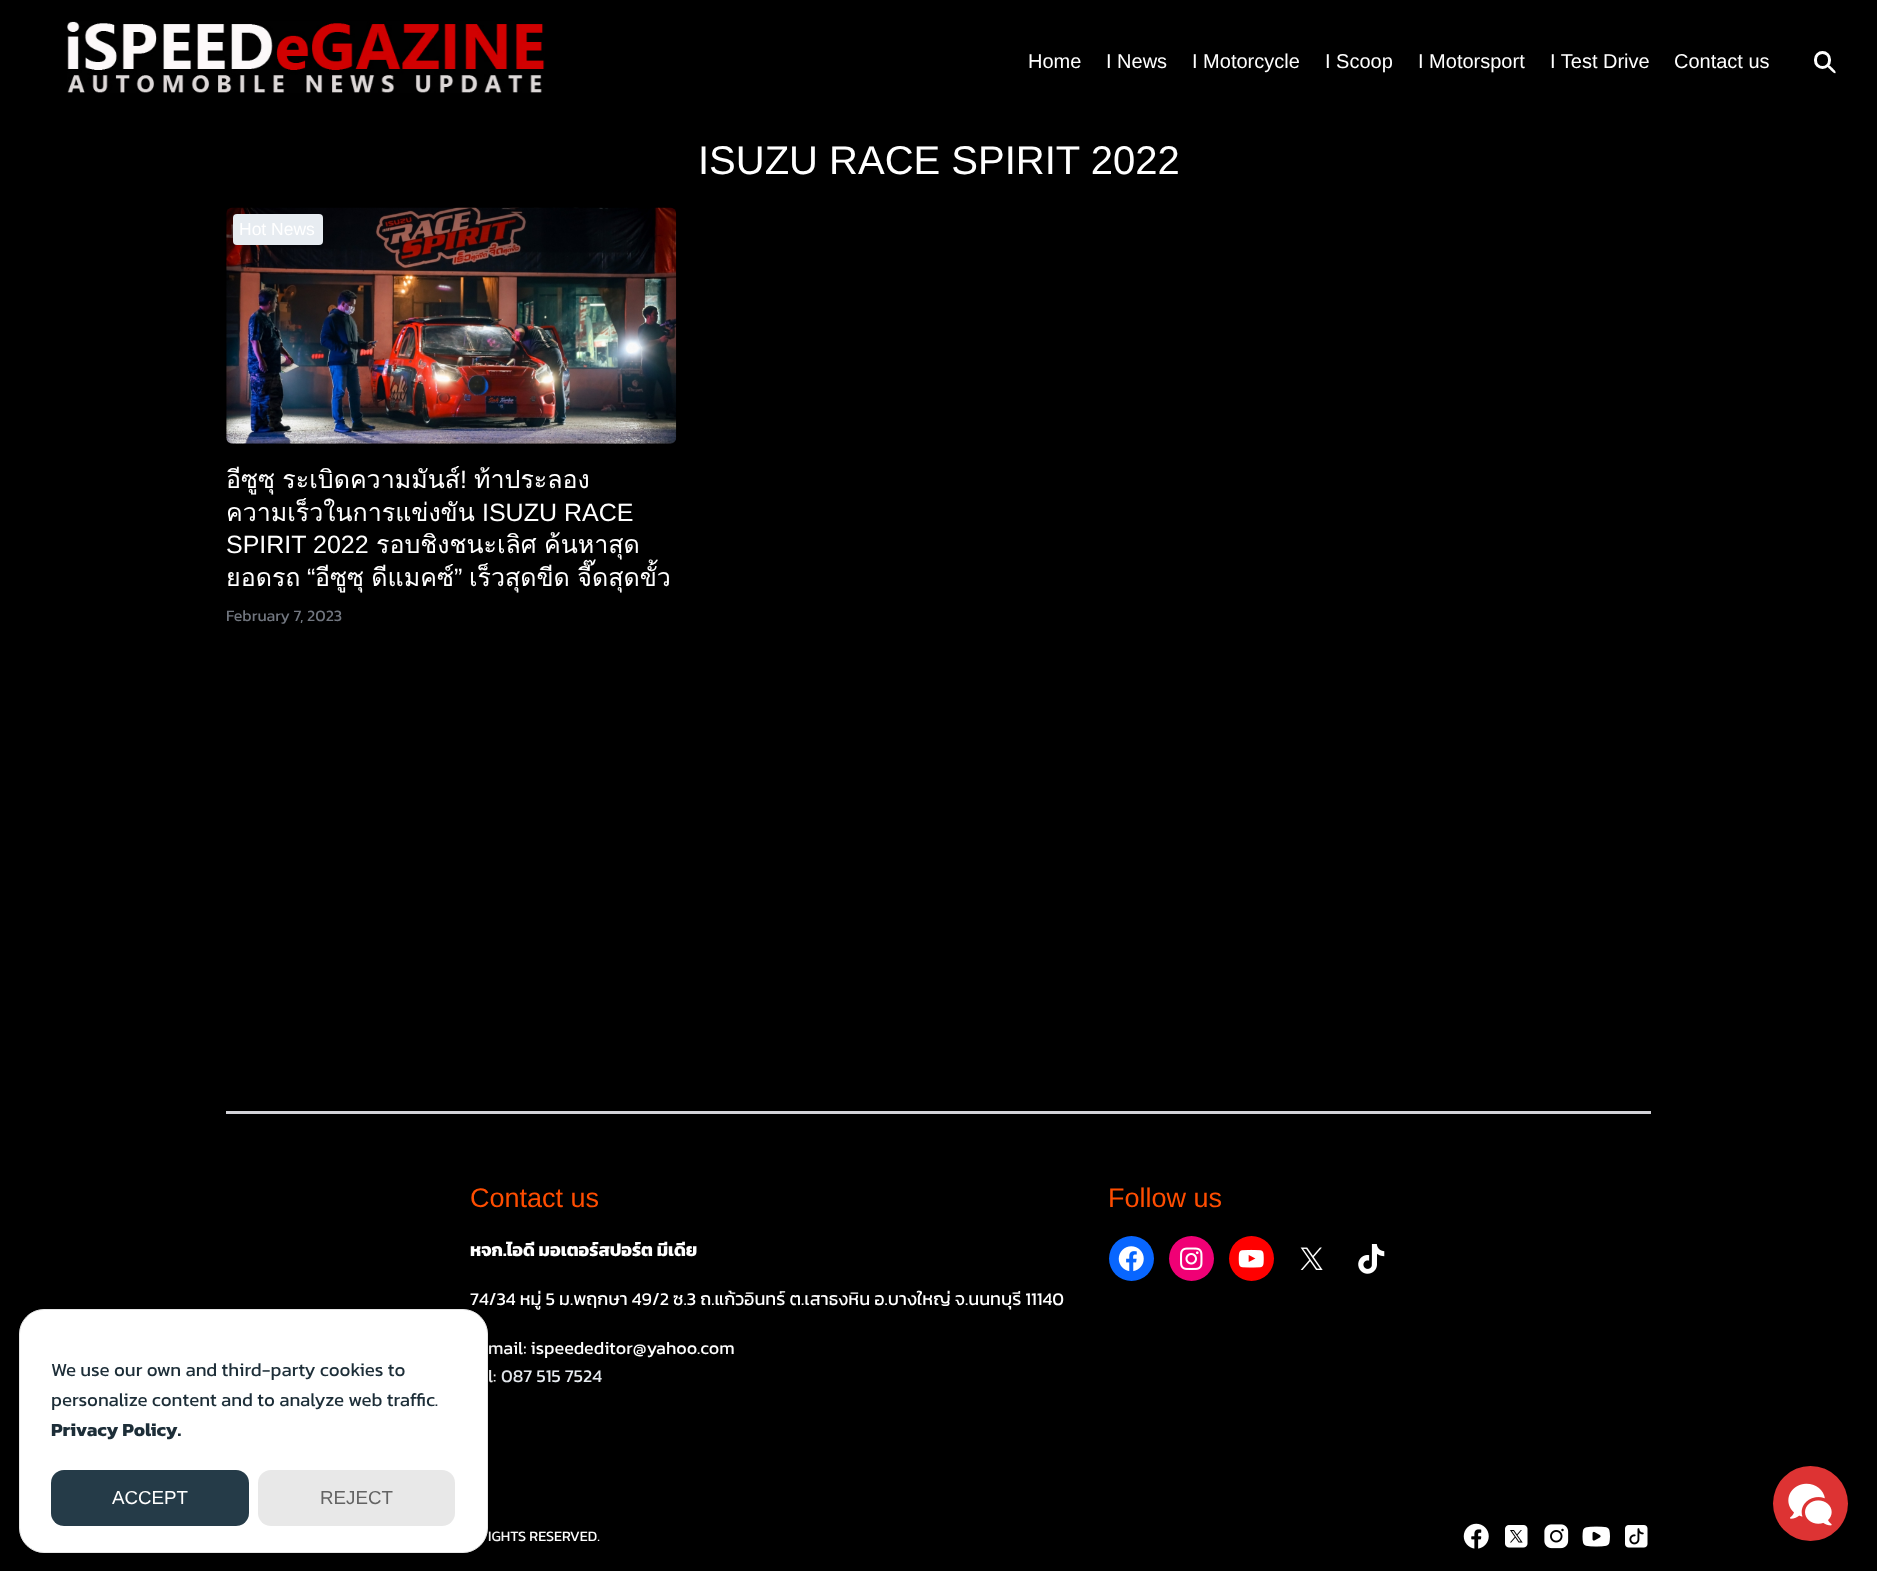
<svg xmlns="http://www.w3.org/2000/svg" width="1877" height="1571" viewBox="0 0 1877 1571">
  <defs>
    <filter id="blur1" x="-50%" y="-200%" width="200%" height="500%"><feGaussianBlur stdDeviation="19"/></filter>
  </defs>
  <rect width="100%" height="100%" fill="#000000"/>
  <image x="67" y="21" width="478" height="72" href="img1.png"/>
  <text x="1028" y="68" font-family="Liberation Sans" font-size="20" fill="#ffffff">Home</text>
  <text x="1106" y="68" font-family="Liberation Sans" font-size="20" fill="#ffffff">I News</text>
  <text x="1192" y="68" font-family="Liberation Sans" font-size="20" fill="#ffffff">I Motorcycle</text>
  <text x="1325" y="68" font-family="Liberation Sans" font-size="20" fill="#ffffff">I Scoop</text>
  <text x="1418" y="68" font-family="Liberation Sans" font-size="20" fill="#ffffff">I Motorsport</text>
  <text x="1550" y="68" font-family="Liberation Sans" font-size="20" fill="#ffffff">I Test Drive</text>
  <text x="1674" y="68" font-family="Liberation Sans" font-size="20" fill="#ffffff">Contact us</text>
  <path d="M1828 65.5C1829.5 64 1831.5 67.5 1832.5 68C1833 69 1836.5 71.5 1835.5 73C1834 74 1831.5 70.5 1830.5 70C1830 69 1826.5 67 1828 65.5Z" fill="#ffffff"/>
  <rect x="1815.5" y="52.5" width="14" height="15" rx="7" fill="none" stroke="#ffffff" stroke-width="3"/>
  <text x="698" y="174" font-family="Liberation Sans" font-size="40" fill="#ffffff">ISUZU RACE SPIRIT 2022</text>
  <image x="226" y="207" width="451" height="237" href="img2.png"/>
  <rect x="233" y="214" width="90" height="31" rx="4" fill="#e7ecf1"/>
  <text x="239" y="235" font-family="Liberation Sans" font-size="17.5" fill="#ffffff">Hot News</text>
  <text x="226" y="488" word-spacing="-1" font-family="Loma" font-size="25" fill="#ffffff">อีซูซุ ระเบิดความมันส์</text>
  <text x="460" y="488" font-family="Liberation Sans" font-size="25" fill="#ffffff">!</text>
  <text x="474" y="488" font-family="Loma" font-size="25" fill="#ffffff">ท้าประลอง</text>
  <text x="226" y="521" font-family="Loma" font-size="25" fill="#ffffff">ความเร็วในการแข่งขัน</text>
  <text x="482" y="521" font-family="Liberation Sans" font-size="25" fill="#ffffff">ISUZU RACE</text>
  <text x="226" y="553" font-family="Liberation Sans" font-size="25" fill="#ffffff">SPIRIT 2022</text>
  <text x="376" y="553" font-family="Loma" font-size="25" fill="#ffffff">รอบชิงชนะเลิศ</text>
  <text x="544" y="553" font-family="Loma" font-size="25" fill="#ffffff">ค้นหาสุด</text>
  <text x="307" y="586" font-family="Liberation Sans" font-size="25" fill="#ffffff">“</text>
  <text x="315" y="586" word-spacing="-1" font-family="Loma" font-size="25" fill="#ffffff">อีซูซุ ดีแมคซ์</text>
  <text x="469" y="586" word-spacing="-1" font-family="Loma" font-size="25" fill="#ffffff">เร็วสุดขีด จี๊ดสุดขั้ว</text>
  <text x="226" y="586" font-family="Loma" font-size="25" fill="#ffffff">ยอดรถ</text>
  <text x="454" y="586" font-family="Liberation Sans" font-size="25" fill="#ffffff">”</text>
  <text x="226" y="621" font-family="Kanit" font-size="16" fill="#71767f">February 7, 2023</text>
  <rect x="226" y="1111" width="1425" height="3" fill="#d2d2d7"/>
  <text x="470" y="1207" font-family="Liberation Sans" font-size="27" fill="#ff4d00">Contact us</text>
  <text x="470" y="1256" font-family="Kanit" font-size="18" font-weight="bold" fill="#ffffff">หจก.ไอดี มอเตอร์สปอร์ต มีเดีย</text>
  <text x="470" y="1305" font-family="Kanit" font-size="18" fill="#ffffff">74/34 หมู่ 5 ม.พฤกษา 49/2 ซ.3 ถ.แก้วอินทร์ ต.เสาธงหิน อ.บางใหญ่ จ.นนทบุรี 11140</text>
  <text x="488" y="1354" font-family="Kanit" font-size="18" fill="#ffffff">mail: ispeededitor@yahoo.com</text>
  <text x="488" y="1382" font-family="Kanit" font-size="18" fill="#ffffff">l:</text>
  <text x="501" y="1382" font-family="Kanit" font-size="18" fill="#e7ecf1">087 515 7524</text>
  <text x="1108" y="1207" font-family="Liberation Sans" font-size="27" fill="#ff4d00">Follow us</text>
  <circle cx="1131.5" cy="1258.5" r="22.5" fill="#0866ff"/>
  <image x="1118" y="1246" width="26" height="26" href="img3.png"/>
  <circle cx="1191.5" cy="1258.5" r="22.5" fill="#f00075"/>
  <image x="1180" y="1247" width="23" height="23" href="img4.png"/>
  <circle cx="1251.5" cy="1258.5" r="22.5" fill="#ff0000"/>
  <image x="1238" y="1249" width="26" height="19" href="img5.png"/>
  <image x="1300" y="1247" width="23" height="23" href="img6.png"/>
  <image x="1358" y="1244" width="27" height="30" href="img7.png"/>
  <text x="488" y="1541" font-family="Kanit" font-size="14.5" fill="#ffffff">IGHTS RESERVED.</text>
  <image x="1463" y="1523" width="26" height="26" href="img8.png"/>
  <image x="1505" y="1525" width="23" height="23" href="img9.png"/>
  <image x="1544" y="1524" width="25" height="25" href="img10.png"/>
  <image x="1582" y="1526" width="28" height="21" href="img11.png"/>
  <image x="1625" y="1525" width="23" height="23" href="img12.png"/>
  <circle cx="1810.5" cy="1503.5" r="37.5" fill="#dd3333"/>
  <image x="1788" y="1483" width="44" height="43" href="img13.png"/>
  <rect x="19" y="1321" width="469" height="244" rx="25" fill="#020203" fill-opacity="0.2" filter="url(#blur1)"/>
  <rect x="19.5" y="1309.5" width="468" height="243" rx="24.5" fill="#ffffff" stroke="#e6e6e6"/>
  <text x="51" y="1376" font-family="Kanit" font-size="18.75" fill="#1d2e38">We use our own and third-party cookies to</text>
  <text x="51" y="1406" font-family="Kanit" font-size="18.75" fill="#1d2e38">personalize content and to analyze web traffic.</text>
  <text x="51" y="1436" font-family="Kanit" font-size="18.75" font-weight="bold" fill="#1d2e38">Privacy Policy.</text>
  <rect x="51" y="1470" width="198" height="56" rx="13" fill="#253b48"/>
  <text x="112" y="1504" font-family="Liberation Sans" font-size="18.75" fill="#ffffff">ACCEPT</text>
  <rect x="258" y="1470" width="197" height="56" rx="13" fill="#e8e8e8"/>
  <text x="320" y="1504" font-family="Liberation Sans" font-size="18.75" fill="#636363">REJECT</text>
</svg>
